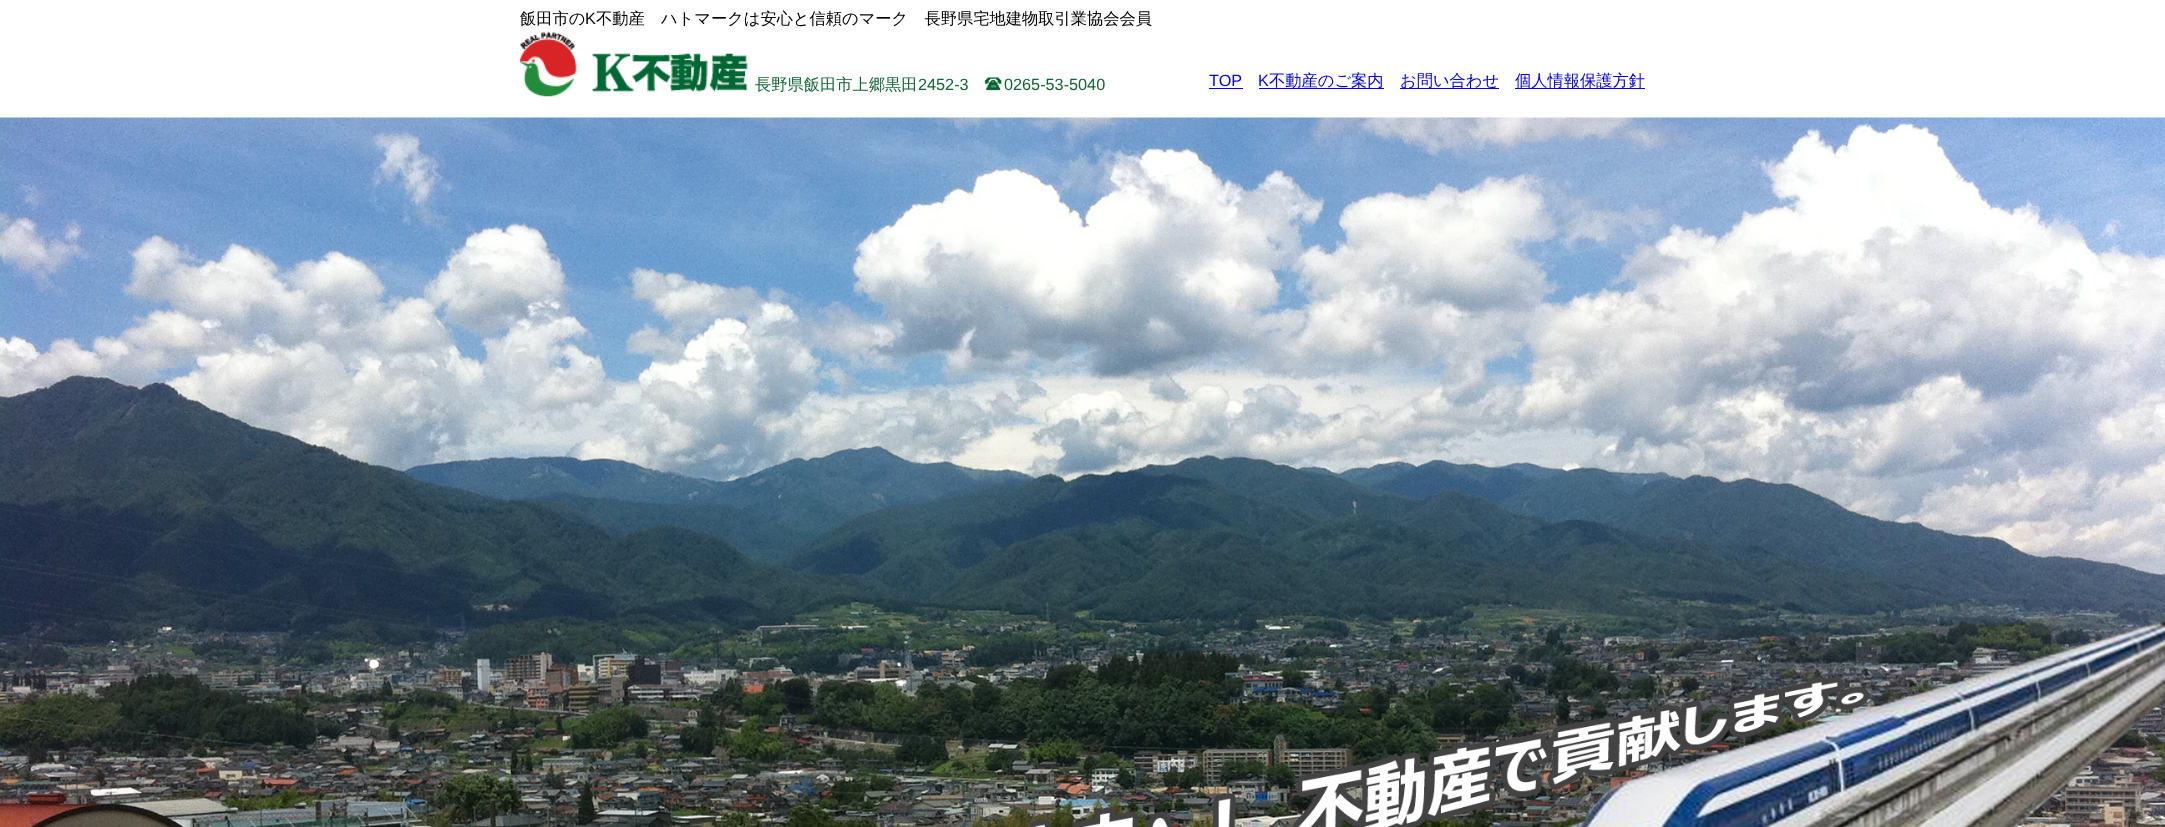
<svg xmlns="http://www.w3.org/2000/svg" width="2165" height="827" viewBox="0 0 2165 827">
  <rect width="100%" height="100%" fill="#ffffff"/>
  <image x="332" y="116" width="1501" height="2" href="img1.png"/>
  <rect x="520" y="116" width="1125" height="2" fill="#ffffff"/>
  <text x="520" y="24" font-family="WenQuanYi Zen Hei" font-size="16.25" font-weight="500" fill="#000000">飯田市の</text>
  <text x="585" y="24" font-family="Liberation Sans" font-size="16.25" fill="#000000">K</text>
  <text x="596" y="24" font-family="WenQuanYi Zen Hei" font-size="16.25" font-weight="500" fill="#000000">不動産</text>
  <text x="661" y="24" font-family="WenQuanYi Zen Hei" font-size="16.25" font-weight="500" fill="#000000">ハトマークは安心と信頼のマーク　長野県宅地建物取引業協会会員</text>
  <image x="520" y="32" width="228" height="65" href="img2.png"/>
  <text x="755" y="90" font-family="WenQuanYi Zen Hei" font-size="16.25" font-weight="500" fill="#126633">長野県飯田市上郷黒田</text>
  <text x="918" y="90" font-family="Liberation Sans" font-size="16.25" fill="#126633">2452-3</text>
  <image x="984" y="77" width="18" height="14" href="img3.png"/>
  <text x="1004" y="90" font-family="Liberation Sans" font-size="16.25" fill="#126633">0265-53-5040</text>
  <text x="1209" y="86" font-family="Liberation Sans" font-size="16.25" fill="#0000ee">TOP</text>
  <rect x="1209" y="88" width="34" height="1" fill="#0000ee"/>
  <text x="1258" y="86" font-family="Liberation Sans" font-size="16.25" fill="#0000ee">K</text>
  <rect x="1259" y="88" width="125" height="1" fill="#0000ee"/>
  <text x="1269" y="86" font-family="WenQuanYi Zen Hei" font-size="16.25" font-weight="500" fill="#0000ee">不動産のご案内</text>
  <rect x="1400" y="88" width="99" height="1" fill="#0000ee"/>
  <text x="1400" y="86" font-family="WenQuanYi Zen Hei" font-size="16.25" font-weight="500" fill="#0000ee">お問い合わせ</text>
  <rect x="1515" y="88" width="130" height="1" fill="#0000ee"/>
  <text x="1515" y="86" font-family="WenQuanYi Zen Hei" font-size="16.25" font-weight="500" fill="#0000ee">個人情報保護方針</text>
  <image x="0" y="117" width="2165" height="710" href="img4.png"/>
</svg>
